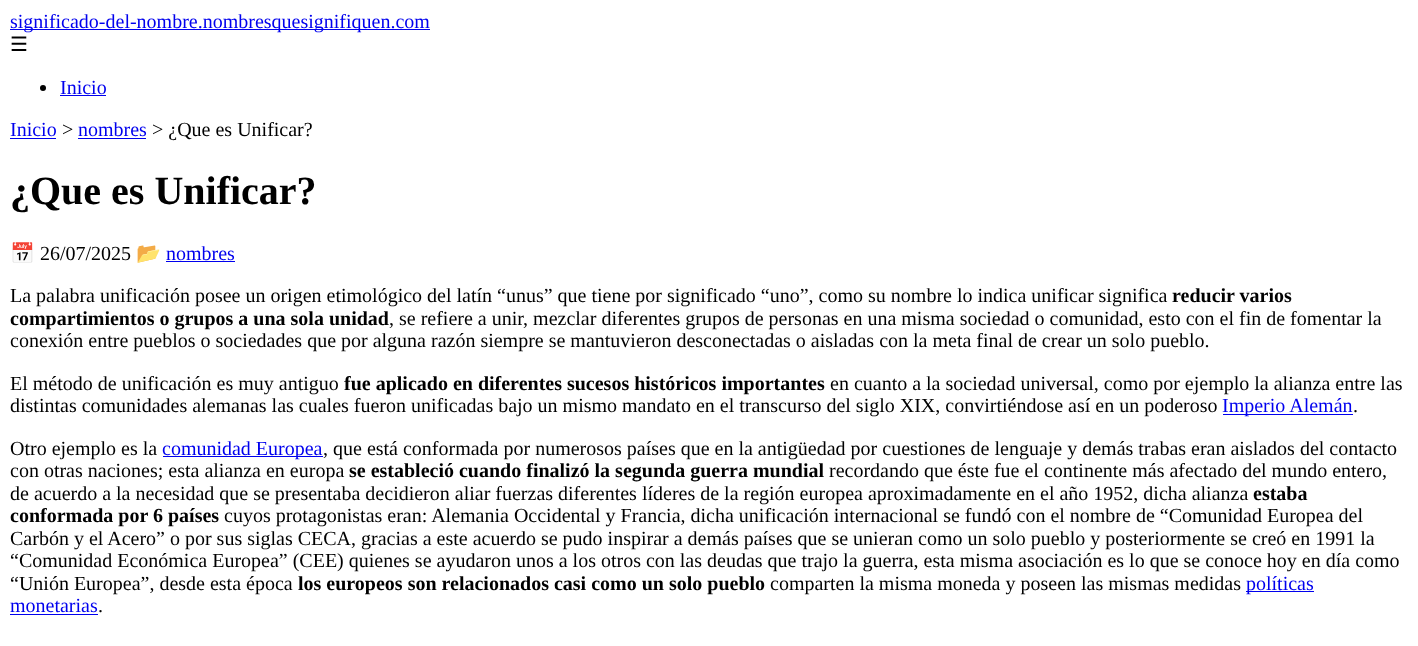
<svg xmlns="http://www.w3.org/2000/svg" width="1418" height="646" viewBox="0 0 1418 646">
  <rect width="100%" height="100%" fill="#ffffff"/>
  <rect x="10" y="29" width="420" height="1" fill="#0000ee"/>
  <text x="10" y="28" font-family="Liberation Serif" font-size="20" fill="#0000ee">significado-del-nombre.nombresquesignifiquen.com</text>
  <text x="10" y="51" font-family="DejaVu Sans" font-size="20" fill="#000000">☰</text>
  <circle cx="43" cy="88" r="3" fill="#000000"/>
  <text x="60" y="94" font-family="Liberation Serif" font-size="20" fill="#0000ee">Inicio</text>
  <rect x="60" y="95" width="46" height="1" fill="#0000ee"/>
  <text x="10" y="136" font-family="Liberation Serif" font-size="20" fill="#0000ee">Inicio</text>
  <rect x="10" y="138" width="46" height="1" fill="#0000ee"/>
  <text x="62" y="136" font-family="Liberation Serif" font-size="20" fill="#000000">&gt;</text>
  <text x="78" y="136" font-family="Liberation Serif" font-size="20" fill="#0000ee">nombres</text>
  <rect x="78" y="138" width="68" height="1" fill="#0000ee"/>
  <text x="152" y="136" font-family="Liberation Serif" font-size="20" fill="#000000">&gt; ¿Que es Unificar?</text>
  <text x="10" y="204" font-family="Liberation Serif" font-size="40" font-weight="bold" fill="#000000">¿Que es Unificar?</text>
  <text x="10" y="260" font-family="Noto Color Emoji" font-size="20" fill="#000000">📅</text>
  <text x="40" y="260" font-family="Liberation Serif" font-size="20" fill="#000000">26/07/2025</text>
  <text x="136" y="260" font-family="Noto Color Emoji" font-size="20" fill="#000000">📂</text>
  <text x="166" y="260" font-family="Liberation Serif" font-size="20" fill="#0000ee">nombres</text>
  <rect x="166" y="261" width="69" height="1" fill="#0000ee"/>
  <text x="10" y="302" font-family="Liberation Serif" font-size="20" fill="#000000">La palabra unificación posee un origen etimológico del latín “unus” que tiene por significado “uno”, como su nombre lo indica unificar significa</text>
  <text x="1172" y="302" font-family="Liberation Serif" font-size="20" font-weight="bold" fill="#000000">reducir varios</text>
  <text x="10" y="325" font-family="Liberation Serif" font-size="20" font-weight="bold" fill="#000000">compartimientos o grupos a una sola unidad</text>
  <text x="389" y="325" font-family="Liberation Serif" font-size="20" fill="#000000">, se refiere a unir, mezclar diferentes grupos de personas en una misma sociedad o comunidad, esto con el fin de fomentar la</text>
  <text x="10" y="347" font-family="Liberation Serif" font-size="20" fill="#000000">conexión entre pueblos o sociedades que por alguna razón siempre se mantuvieron desconectadas o aisladas con la meta final de crear un solo pueblo.</text>
  <text x="10" y="390" font-family="Liberation Serif" font-size="20" fill="#000000">El método de unificación es muy antiguo</text>
  <text x="344" y="390" font-family="Liberation Serif" font-size="20" font-weight="bold" fill="#000000">fue aplicado en diferentes sucesos históricos importantes</text>
  <text x="830" y="390" font-family="Liberation Serif" font-size="20" fill="#000000">en cuanto a la sociedad universal, como por ejemplo la alianza entre las</text>
  <text x="10" y="412" font-family="Liberation Serif" font-size="20" fill="#000000">distintas comunidades alemanas las cuales fueron unificadas bajo un mismo mandato en el transcurso del siglo XIX, convirtiéndose así en un poderoso</text>
  <rect x="1223" y="414" width="130" height="1" fill="#0000ee"/>
  <text x="1222" y="412" font-family="Liberation Serif" font-size="20" fill="#0000ee">Imperio Alemán</text>
  <text x="1353" y="412" font-family="Liberation Serif" font-size="20" fill="#000000">.</text>
  <text x="10" y="455" font-family="Liberation Serif" font-size="20" fill="#000000">Otro ejemplo es la</text>
  <rect x="163" y="456" width="160" height="1" fill="#0000ee"/>
  <text x="162" y="455" font-family="Liberation Serif" font-size="20" fill="#0000ee">comunidad Europea</text>
  <text x="323" y="455" font-family="Liberation Serif" font-size="20" fill="#000000">, que está conformada por numerosos países que en la antigüedad por cuestiones de lenguaje y demás trabas eran aislados del contacto</text>
  <text x="10" y="477" font-family="Liberation Serif" font-size="20" fill="#000000">con otras naciones; esta alianza en europa</text>
  <text x="349" y="477" font-family="Liberation Serif" font-size="20" font-weight="bold" fill="#000000">se estableció cuando finalizó la segunda guerra mundial</text>
  <text x="829" y="477" font-family="Liberation Serif" font-size="20" fill="#000000">recordando que éste fue el continente más afectado del mundo entero,</text>
  <text x="10" y="500" font-family="Liberation Serif" font-size="20" fill="#000000">de acuerdo a la necesidad que se presentaba decidieron aliar fuerzas diferentes líderes de la región europea aproximadamente en el año 1952, dicha alianza</text>
  <text x="1253" y="500" font-family="Liberation Serif" font-size="20" font-weight="bold" fill="#000000">estaba</text>
  <text x="10" y="522" font-family="Liberation Serif" font-size="20" font-weight="bold" fill="#000000">conformada por 6 países</text>
  <text x="224" y="522" font-family="Liberation Serif" font-size="20" fill="#000000">cuyos protagonistas eran: Alemania Occidental y Francia, dicha unificación internacional se fundó con el nombre de “Comunidad Europea del</text>
  <text x="10" y="545" font-family="Liberation Serif" font-size="20" fill="#000000">Carbón y el Acero” o por sus siglas CECA, gracias a este acuerdo se pudo inspirar a demás países que se unieran como un solo pueblo y posteriormente se creó en 1991 la</text>
  <text x="10" y="567" font-family="Liberation Serif" font-size="20" fill="#000000">“Comunidad Económica Europea” (CEE) quienes se ayudaron unos a los otros con las deudas que trajo la guerra, esta misma asociación es lo que se conoce hoy en día como</text>
  <text x="10" y="590" font-family="Liberation Serif" font-size="20" fill="#000000">“Unión Europea”, desde esta época</text>
  <text x="298" y="590" font-family="Liberation Serif" font-size="20" font-weight="bold" fill="#000000">los europeos son relacionados casi como un solo pueblo</text>
  <text x="770" y="590" font-family="Liberation Serif" font-size="20" fill="#000000">comparten la misma moneda y poseen las mismas medidas</text>
  <rect x="1246" y="591" width="68" height="1" fill="#0000ee"/>
  <text x="1246" y="590" font-family="Liberation Serif" font-size="20" fill="#0000ee">políticas</text>
  <text x="10" y="612" font-family="Liberation Serif" font-size="20" fill="#0000ee">monetarias</text>
  <rect x="10" y="614" width="88" height="1" fill="#0000ee"/>
  <text x="98" y="612" font-family="Liberation Serif" font-size="20" fill="#000000">.</text>
</svg>
